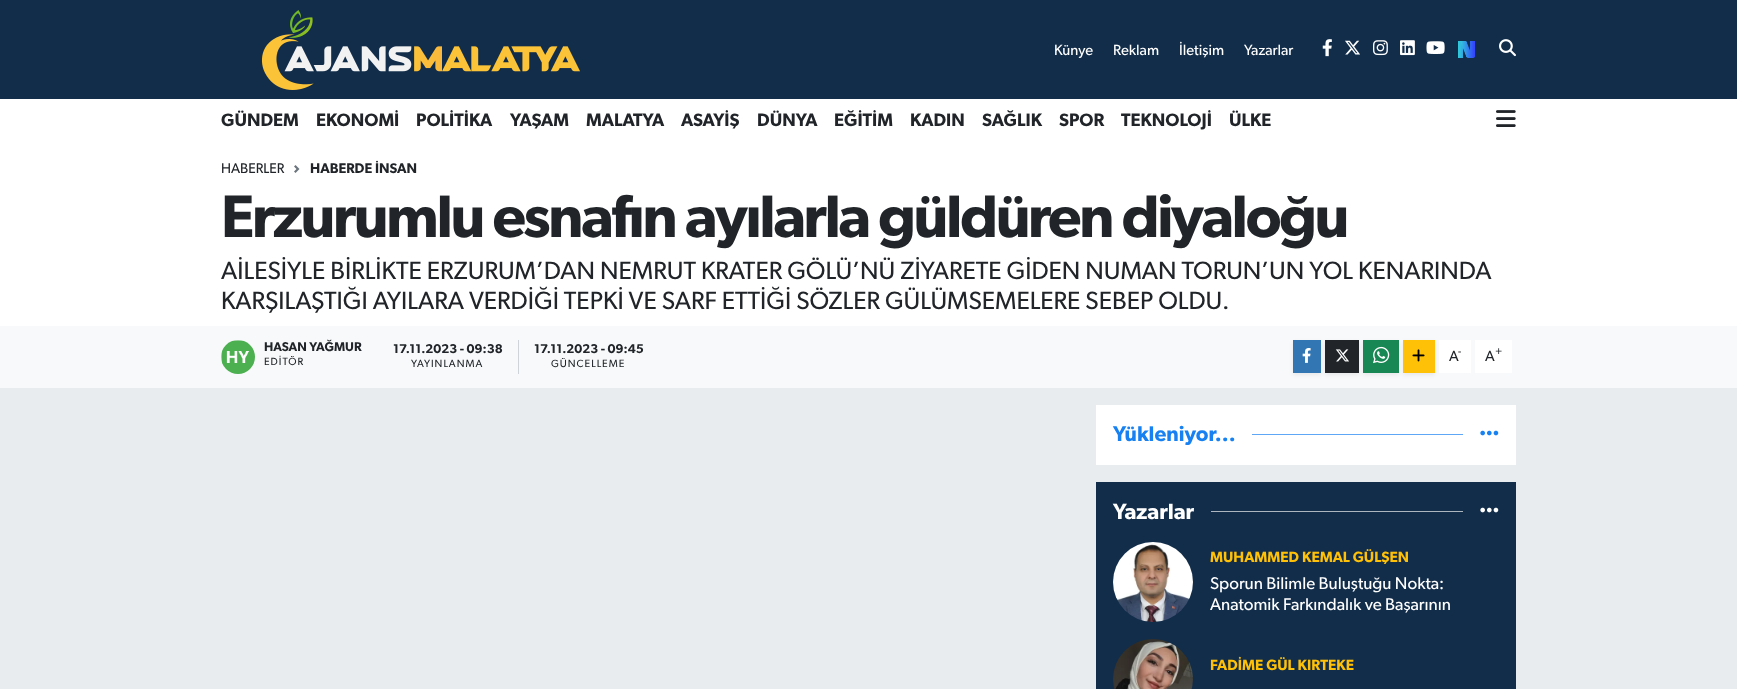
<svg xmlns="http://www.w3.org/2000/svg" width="1737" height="689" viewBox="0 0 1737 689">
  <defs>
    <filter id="blur1" x="-50%" y="-200%" width="200%" height="500%"><feGaussianBlur stdDeviation="2"/></filter>
  </defs>
  <rect width="100%" height="100%" fill="#e9ecef"/>
  <rect x="0" y="0" width="1737" height="99" fill="#122d4a"/>
  <image x="261" y="10" width="319" height="80" href="img1.png"/>
  <text x="1054" y="55" font-family="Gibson" font-size="14.9" fill="#ffffff">Künye</text>
  <text x="1113" y="55" font-family="Gibson" font-size="14.9" fill="#ffffff">Reklam</text>
  <text x="1179" y="55" font-family="Gibson" font-size="14.9" fill="#ffffff">İletişim</text>
  <text x="1244" y="55" font-family="Gibson" font-size="14.9" fill="#ffffff">Yazarlar</text>
  <image x="1322" y="39" width="10" height="18" href="img2.png"/>
  <image x="1345" y="40" width="15" height="15" href="img3.png"/>
  <image x="1373" y="40" width="15" height="16" href="img4.png"/>
  <image x="1400" y="40" width="15" height="16" href="img5.png"/>
  <image x="1426" y="41" width="19" height="13" href="img6.png"/>
  <image x="1458" y="41" width="17" height="17" href="img7.png"/>
  <image x="1499" y="39" width="17" height="18" href="img8.png"/>
  <rect x="0" y="99" width="1737" height="227" fill="#ffffff"/>
  <text x="221" y="126" font-family="Gibson" font-size="18" font-weight="600" fill="#212529">GÜNDEM</text>
  <text x="316" y="126" font-family="Gibson" font-size="18" font-weight="600" fill="#212529">EKONOMİ</text>
  <text x="416" y="126" font-family="Gibson" font-size="18" font-weight="600" fill="#212529">POLİTİKA</text>
  <text x="510" y="126" font-family="Gibson" font-size="18" font-weight="600" fill="#212529">YAŞAM</text>
  <text x="586" y="126" font-family="Gibson" font-size="18" font-weight="600" fill="#212529">MALATYA</text>
  <text x="681" y="126" font-family="Gibson" font-size="18" font-weight="600" fill="#212529">ASAYİŞ</text>
  <text x="757" y="126" font-family="Gibson" font-size="18" font-weight="600" fill="#212529">DÜNYA</text>
  <text x="834" y="126" font-family="Gibson" font-size="18" font-weight="600" fill="#212529">EĞİTİM</text>
  <text x="910" y="126" font-family="Gibson" font-size="18" font-weight="600" fill="#212529">KADIN</text>
  <text x="982" y="126" font-family="Gibson" font-size="18" font-weight="600" fill="#212529">SAĞLIK</text>
  <text x="1059" y="126" font-family="Gibson" font-size="18" font-weight="600" fill="#212529">SPOR</text>
  <text x="1121" y="126" font-family="Gibson" font-size="18" font-weight="600" fill="#212529">TEKNOLOJİ</text>
  <text x="1229" y="126" font-family="Gibson" font-size="18" font-weight="600" fill="#212529">ÜLKE</text>
  <image x="1496" y="110" width="20" height="17" href="img9.png"/>
  <text x="221" y="173" font-family="Gibson" font-size="14" fill="#212529">HABERLER</text>
  <image x="294" y="165" width="6" height="8" href="img10.png"/>
  <text x="310" y="173" font-family="Gibson" font-size="14" font-weight="600" fill="#212529">HABERDE İNSAN</text>
  <text x="221" y="237" font-family="Gibson" font-size="60" font-weight="600" letter-spacing="-2.3" fill="#212529">Erzurumlu esnafın ayılarla güldüren diyaloğu</text>
  <text x="221" y="279" font-family="Gibson" font-size="25" fill="#212529">AİLESİYLE BİRLİKTE ERZURUM’DAN NEMRUT KRATER GÖLÜ’NÜ ZİYARETE GİDEN NUMAN TORUN’UN YOL KENARINDA</text>
  <text x="221" y="309" font-family="Gibson" font-size="25" fill="#212529">KARŞILAŞTIĞI AYILARA VERDİĞİ TEPKİ VE SARF ETTİĞİ SÖZLER GÜLÜMSEMELERE SEBEP OLDU.</text>
  <rect x="0" y="326" width="1737" height="62" fill="#f8f9fa"/>
  <image x="221" y="340" width="34" height="34" href="img11.png"/>
  <text x="264" y="351" font-family="Gibson" font-size="12.75" font-weight="600" fill="#212529">HASAN YAĞMUR</text>
  <text x="264" y="365" font-family="Gibson" font-size="10.5" letter-spacing="1" fill="#212529">EDİTÖR</text>
  <rect x="518" y="340" width="1" height="34" fill="#ced4da"/>
  <text x="393" y="353" font-family="Gibson" font-size="12.75" font-weight="600" fill="#212529">17.11.2023 - 09:38</text>
  <text x="411" y="367" font-family="Gibson" font-size="10.5" letter-spacing="1" fill="#212529">YAYINLANMA</text>
  <text x="534" y="353" font-family="Gibson" font-size="12.75" font-weight="600" fill="#212529">17.11.2023 - 09:45</text>
  <text x="551" y="367" font-family="Gibson" font-size="10.5" letter-spacing="1" fill="#212529">GÜNCELLEME</text>
  <rect x="1293" y="342" width="28" height="33" fill="#000000" fill-opacity="0.07" filter="url(#blur1)"/>
  <rect x="1293" y="340" width="28" height="33" fill="#3276b3"/>
  <image x="1302" y="348" width="9" height="15" href="img12.png"/>
  <rect x="1325" y="342" width="34" height="33" fill="#000000" fill-opacity="0.07" filter="url(#blur1)"/>
  <rect x="1325" y="340" width="34" height="33" fill="#212529"/>
  <image x="1335" y="349" width="14" height="13" href="img13.png"/>
  <rect x="1363" y="342" width="36" height="33" fill="#000000" fill-opacity="0.07" filter="url(#blur1)"/>
  <rect x="1363" y="340" width="36" height="33" fill="#198754"/>
  <image x="1373" y="346" width="17" height="18" href="img14.png"/>
  <rect x="1439" y="340" width="32" height="33" fill="#ffffff"/>
  <rect x="1403" y="342" width="32" height="33" fill="#000000" fill-opacity="0.07" filter="url(#blur1)"/>
  <rect x="1403" y="340" width="32" height="33" fill="#ffc107"/>
  <image x="1412" y="349" width="13" height="13" href="img15.png"/>
  <text x="1449" y="361" font-family="Gibson" font-size="14.9" fill="#212529">A</text>
  <text x="1458" y="355" font-family="Gibson" font-size="11" fill="#212529">-</text>
  <rect x="1475" y="340" width="37" height="33" fill="#ffffff"/>
  <text x="1485" y="361" font-family="Gibson" font-size="14.9" fill="#212529">A</text>
  <text x="1495" y="355" font-family="Gibson" font-size="11" fill="#212529">+</text>
  <rect x="1096" y="405" width="420" height="60" fill="#ffffff"/>
  <text x="1113" y="441" font-family="Gibson" font-size="21.25" font-weight="600" fill="#1781f2">Yükleniyor...</text>
  <rect x="1252" y="434" width="211" height="1" fill="#5da7f6"/>
  <image x="1480" y="430" width="19" height="6" href="img16.png"/>
  <rect x="1096" y="482" width="420" height="207" fill="#122d4a"/>
  <text x="1113" y="519" font-family="Gibson" font-size="22" font-weight="600" fill="#ffffff">Yazarlar</text>
  <rect x="1211" y="511" width="252" height="1" fill="#adb5be"/>
  <image x="1480" y="507" width="19" height="6" href="img17.png"/>
  <image x="1113" y="542" width="80" height="80" href="img18.png"/>
  <text x="1210" y="562" font-family="Gibson" font-size="14.9" font-weight="600" fill="#ffc107">MUHAMMED KEMAL GÜLŞEN</text>
  <text x="1210" y="589" font-family="Gibson" font-size="17" fill="#ffffff">Sporun Bilimle Buluştuğu Nokta:</text>
  <text x="1210" y="610" font-family="Gibson" font-size="17" fill="#ffffff">Anatomik Farkındalık ve Başarının</text>
  <image x="1113" y="639" width="80" height="50" href="img19.png"/>
  <text x="1210" y="670" font-family="Gibson" font-size="14.9" font-weight="600" fill="#ffc107">FADİME GÜL KIRTEKE</text>
</svg>
